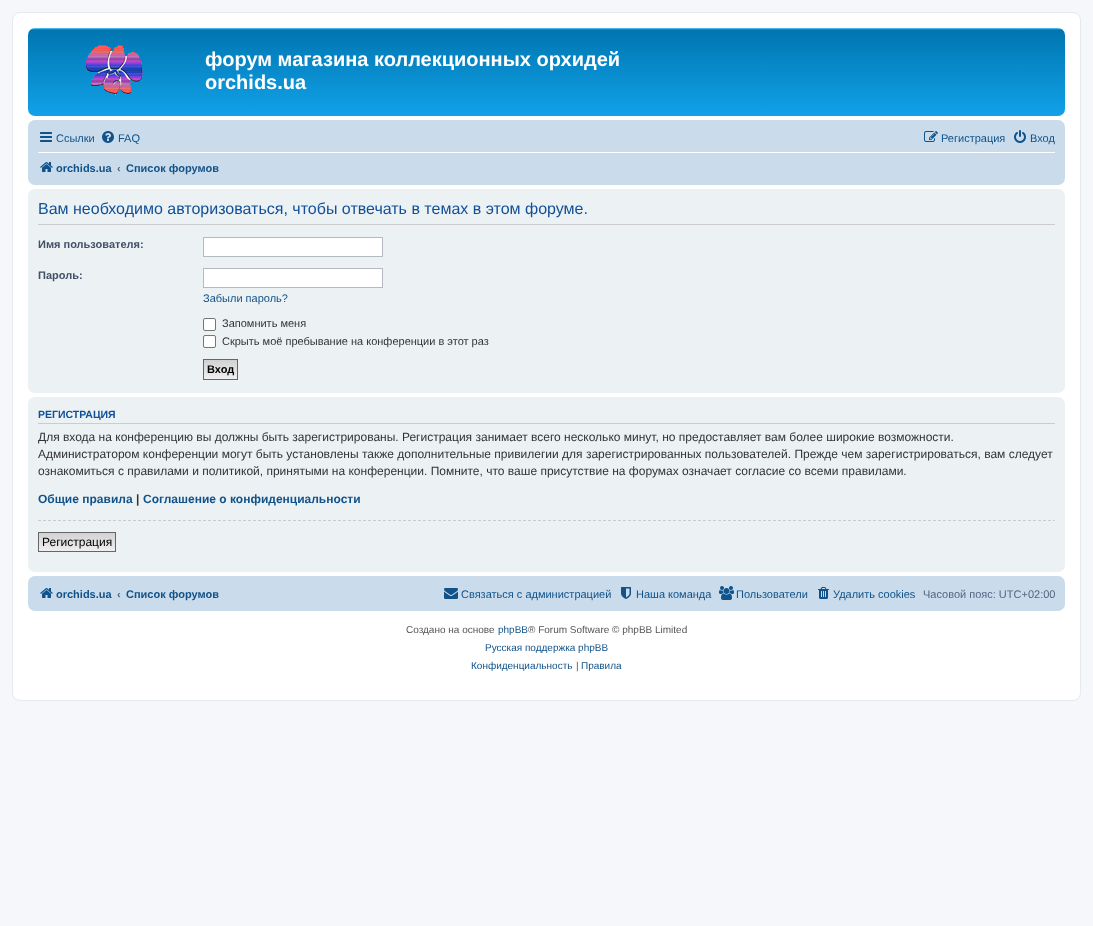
<svg xmlns="http://www.w3.org/2000/svg" width="1093" height="926" viewBox="0 0 1093 926">
  <defs>
    <linearGradient id="g1" gradientUnits="userSpaceOnUse" x1="547" y1="28" x2="547" y2="120"><stop offset="0" stop-color="#6aceff"/><stop offset="0.02" stop-color="#0076b1"/><stop offset="1" stop-color="#12a3eb"/></linearGradient>
    <linearGradient id="g2" gradientUnits="userSpaceOnUse" x1="221" y1="360" x2="221" y2="379"><stop offset="0" stop-color="#d2d2d2"/><stop offset="1" stop-color="#efefef"/></linearGradient>
    <linearGradient id="g3" gradientUnits="userSpaceOnUse" x1="77" y1="533" x2="77" y2="551"><stop offset="0" stop-color="#d2d2d2"/><stop offset="1" stop-color="#efefef"/></linearGradient>
  </defs>
  <rect width="100%" height="100%" fill="#f5f7fa"/>
  <rect x="12.5" y="12.5" width="1068" height="688" rx="7.5" fill="#ffffff" stroke="#e6e9ed"/>
  <rect x="28" y="28" width="1037" height="88" rx="7" fill="url(#g1)"/>
  <image x="86" y="45" width="57" height="50" href="img1.png"/>
  <text x="205" y="66" font-family="Liberation Sans" font-size="20" font-weight="bold" fill="#ffffff">форум магазина коллекционных орхидей</text>
  <text x="205" y="89" font-family="Liberation Sans" font-size="20" font-weight="bold" fill="#ffffff">orchids.ua</text>
  <rect x="28" y="120" width="1037" height="65" rx="7" fill="#cadceb"/>
  <image x="40" y="132" width="12" height="10" href="img2.png"/>
  <text x="56" y="142" font-family="Liberation Sans" font-size="11" fill="#105289">Ссылки</text>
  <image x="102" y="131" width="12" height="12" href="img3.png"/>
  <text x="118" y="142" font-family="Liberation Sans" font-size="11" fill="#105289">FAQ</text>
  <image x="924" y="131" width="14" height="11" href="img4.png"/>
  <text x="941" y="142" font-family="Liberation Sans" font-size="11" fill="#105289">Регистрация</text>
  <image x="1014" y="130" width="12" height="13" href="img5.png"/>
  <text x="1030" y="142" font-family="Liberation Sans" font-size="11" fill="#105289">Вход</text>
  <rect x="38" y="152" width="1017" height="1" fill="#ffffff"/>
  <image x="40" y="162" width="13" height="10" href="img6.png"/>
  <text x="56" y="172" font-family="Liberation Sans" font-size="11" font-weight="bold" fill="#105289">orchids.ua</text>
  <text x="117" y="172" font-family="Liberation Sans" font-size="11" font-weight="bold" fill="#536482">‹</text>
  <text x="126" y="172" font-family="Liberation Sans" font-size="11" font-weight="bold" fill="#105289">Список форумов</text>
  <rect x="28" y="189" width="1037" height="204" rx="7" fill="#ecf1f3"/>
  <rect x="38" y="224" width="1017" height="1" fill="#cccccc"/>
  <text x="38" y="214" font-family="Liberation Sans" font-size="16" fill="#115098">Вам необходимо авторизоваться, чтобы отвечать в темах в этом форуме.</text>
  <text x="38" y="248" font-family="Liberation Sans" font-size="11" font-weight="bold" fill="#425067">Имя пользователя:</text>
  <rect x="203.5" y="237.5" width="179" height="19" fill="#ffffff" stroke="#b4bac0"/>
  <text x="38" y="279" font-family="Liberation Sans" font-size="11" font-weight="bold" fill="#425067">Пароль:</text>
  <rect x="203.5" y="268.5" width="179" height="19" fill="#ffffff" stroke="#b4bac0"/>
  <text x="203" y="302" font-family="Liberation Sans" font-size="11" fill="#105289">Забыли пароль?</text>
  <rect x="203.5" y="318.5" width="12" height="12" rx="1.5" fill="#ffffff" stroke="#767676"/>
  <text x="222" y="327" font-family="Liberation Sans" font-size="11" fill="#333333">Запомнить меня</text>
  <rect x="203.5" y="335.5" width="12" height="12" rx="1.5" fill="#ffffff" stroke="#767676"/>
  <text x="222" y="345" font-family="Liberation Sans" font-size="11" fill="#333333">Скрыть моё пребывание на конференции в этот раз</text>
  <rect x="204" y="360" width="33" height="19" fill="url(#g2)"/>
  <rect x="203.5" y="359.5" width="34" height="20" fill="none" stroke="#666666"/>
  <text x="207" y="373" font-family="Liberation Sans" font-size="11" font-weight="bold" fill="#000000">Вход</text>
  <rect x="28" y="397" width="1037" height="175" rx="7" fill="#ecf1f3"/>
  <rect x="38" y="423" width="1017" height="1" fill="#cccccc"/>
  <text x="38" y="418" font-family="Liberation Sans" font-size="10.5" font-weight="bold" fill="#115098">РЕГИСТРАЦИЯ</text>
  <text x="38" y="441" font-family="Liberation Sans" font-size="12" fill="#333333">Для входа на конференцию вы должны быть зарегистрированы. Регистрация занимает всего несколько минут, но предоставляет вам более широкие возможности.</text>
  <text x="38" y="458" font-family="Liberation Sans" font-size="12" fill="#333333">Администратором конференции могут быть установлены также дополнительные привилегии для зарегистрированных пользователей. Прежде чем зарегистрироваться, вам следует</text>
  <text x="38" y="475" font-family="Liberation Sans" font-size="12" fill="#333333">ознакомиться с правилами и политикой, принятыми на конференции. Помните, что ваше присутствие на форумах означает согласие со всеми правилами.</text>
  <text x="38" y="503" font-family="Liberation Sans" font-size="12" font-weight="bold" fill="#105289">Общие правила</text>
  <text x="136" y="503" font-family="Liberation Sans" font-size="12" font-weight="bold" fill="#333333">|</text>
  <text x="143" y="503" font-family="Liberation Sans" font-size="12" font-weight="bold" fill="#105289">Соглашение о конфиденциальности</text>
  <path d="M38 520.5H1055" fill="none" stroke="#cccccc" stroke-dasharray="3 2"/>
  <rect x="39" y="533" width="76" height="18" fill="url(#g3)"/>
  <rect x="38.5" y="532.5" width="77" height="19" fill="none" stroke="#666666"/>
  <text x="42" y="546" font-family="Liberation Sans" font-size="12" fill="#000000">Регистрация</text>
  <rect x="28" y="576" width="1037" height="35" rx="7" fill="#cadceb"/>
  <image x="40" y="588" width="13" height="10" href="img6.png"/>
  <text x="56" y="598" font-family="Liberation Sans" font-size="11" font-weight="bold" fill="#105289">orchids.ua</text>
  <text x="117" y="598" font-family="Liberation Sans" font-size="11" font-weight="bold" fill="#536482">‹</text>
  <text x="126" y="598" font-family="Liberation Sans" font-size="11" font-weight="bold" fill="#105289">Список форумов</text>
  <image x="444" y="588" width="14" height="11" href="img7.png"/>
  <text x="461" y="598" font-family="Liberation Sans" font-size="11" fill="#105289">Связаться с администрацией</text>
  <image x="621" y="587" width="10" height="12" href="img8.png"/>
  <text x="636" y="598" font-family="Liberation Sans" font-size="11" fill="#105289">Наша команда</text>
  <image x="719" y="586" width="15" height="14" href="img9.png"/>
  <text x="736" y="598" font-family="Liberation Sans" font-size="11" fill="#105289">Пользователи</text>
  <image x="818" y="587" width="11" height="12" href="img10.png"/>
  <text x="833" y="598" font-family="Liberation Sans" font-size="11" fill="#105289">Удалить cookies</text>
  <text x="923" y="598" font-family="Liberation Sans" font-size="11" fill="#536482">Часовой пояс: UTC+02:00</text>
  <text x="406" y="633" font-family="Liberation Sans" font-size="10" fill="#555555">Создано на основе</text>
  <text x="498" y="633" font-family="Liberation Sans" font-size="10" fill="#105289">phpBB</text>
  <text x="528" y="633" font-family="Liberation Sans" font-size="10" fill="#555555">® Forum Software © phpBB Limited</text>
  <text x="485" y="651" font-family="Liberation Sans" font-size="10" fill="#105289">Русская поддержка phpBB</text>
  <text x="471" y="669" font-family="Liberation Sans" font-size="10" fill="#105289">Конфиденциальность</text>
  <text x="576" y="669" font-family="Liberation Sans" font-size="10" fill="#555555">|</text>
  <text x="581" y="669" font-family="Liberation Sans" font-size="10" fill="#105289">Правила</text>
</svg>
